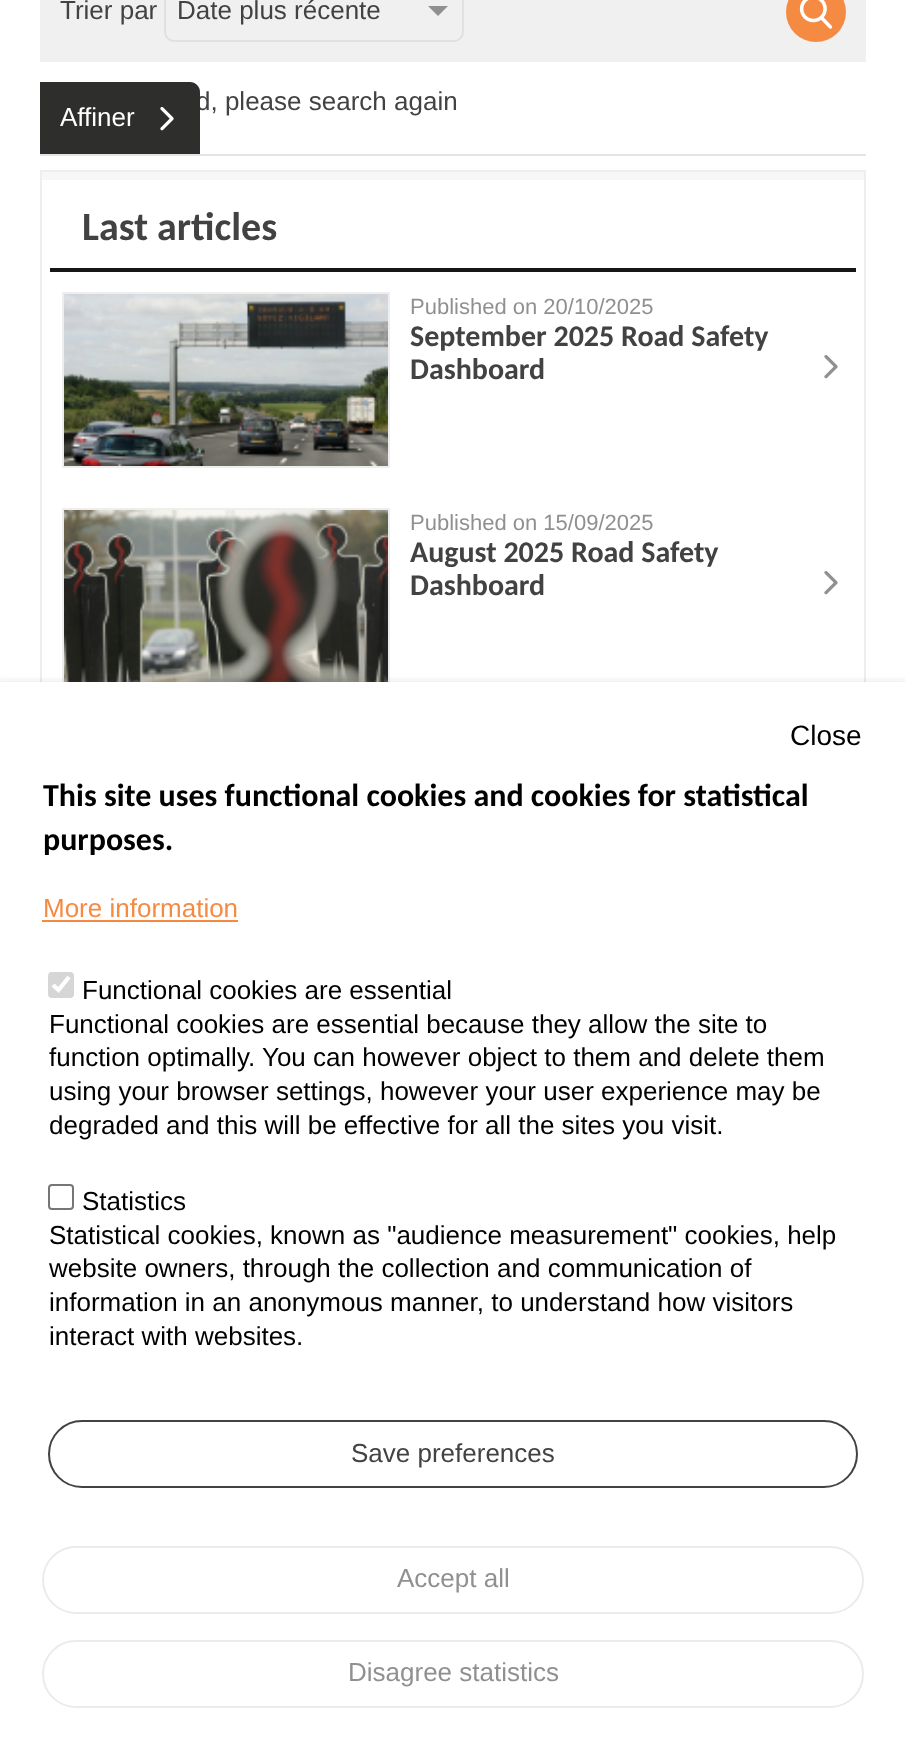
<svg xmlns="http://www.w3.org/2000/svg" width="905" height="1754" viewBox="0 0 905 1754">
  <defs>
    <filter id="blur1" x="-50%" y="-200%" width="200%" height="500%"><feGaussianBlur stdDeviation="3"/></filter>
  </defs>
  <rect width="100%" height="100%" fill="#ffffff"/>
  <rect x="40" y="0" width="826" height="62" fill="#f0f0f0"/>
  <text x="60" y="19" font-family="Liberation Sans" font-size="26" fill="#424242">Trier par</text>
  <rect x="165" y="-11" width="298" height="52" rx="9" fill="none" stroke="#dfe0e1" stroke-width="2"/>
  <text x="177" y="19" font-family="Liberation Sans" font-size="26" fill="#424242">Date plus récente</text>
  <path d="M428 6H448L438 16Z" fill="#928f8f"/>
  <circle cx="816" cy="12" r="30" fill="#f58a42"/>
  <image x="799" y="0" width="34" height="29" href="img1.png"/>
  <rect x="40" y="154" width="826" height="2" fill="#e4e4e4"/>
  <text x="196" y="110" font-family="Liberation Sans" font-size="26" fill="#424242">d, please search again</text>
  <path d="M40 82H190C195.5 82 200 86.5 200 92V154H40Z" fill="#2e2e2d"/>
  <text x="60" y="126" font-family="Liberation Sans" font-size="26" fill="#ffffff">Affiner</text>
  <image x="160" y="107" width="14" height="24" href="img2.png"/>
  <rect x="41" y="171" width="824" height="884" fill="none" stroke="#eeeeee" stroke-width="2"/>
  <rect x="42" y="172" width="822" height="8" fill="#f7f7f7"/>
  <text x="82" y="240" font-family="Carlito" font-size="40" font-weight="bold" fill="#424242">Last articles</text>
  <rect x="50" y="268" width="806" height="4" fill="#161616"/>
  <rect x="63" y="293" width="326" height="174" fill="none" stroke="#eeeeee" stroke-width="2"/>
  <image x="64" y="294" width="324" height="172" href="img3.png"/>
  <text x="410" y="314" font-family="Liberation Sans" font-size="22" fill="#928f8f">Published on 20/10/2025</text>
  <text x="410" y="346" font-family="Carlito" font-size="30" font-weight="bold" fill="#424242">September 2025 Road Safety</text>
  <text x="410" y="379" font-family="Carlito" font-size="30" font-weight="bold" fill="#424242">Dashboard</text>
  <image x="824" y="355" width="14" height="24" href="img4.png"/>
  <rect x="63" y="509" width="326" height="174" fill="none" stroke="#eeeeee" stroke-width="2"/>
  <image x="64" y="510" width="324" height="172" href="img5.png"/>
  <text x="410" y="530" font-family="Liberation Sans" font-size="22" fill="#928f8f">Published on 15/09/2025</text>
  <text x="410" y="562" font-family="Carlito" font-size="30" font-weight="bold" fill="#424242">August 2025 Road Safety</text>
  <text x="410" y="595" font-family="Carlito" font-size="30" font-weight="bold" fill="#424242">Dashboard</text>
  <image x="824" y="571" width="14" height="24" href="img4.png"/>
  <rect x="-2" y="682" width="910" height="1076" fill="#3c4043" fill-opacity="0.16" filter="url(#blur1)"/>
  <rect x="0" y="682" width="905" height="1072" fill="#ffffff"/>
  <text x="790" y="745" font-family="Liberation Sans" font-size="28" fill="#000000">Close</text>
  <text x="43" y="806" font-family="Carlito" font-size="32" font-weight="bold" fill="#000000">This site uses functional cookies and cookies for statistical</text>
  <text x="43" y="850" font-family="Carlito" font-size="32" font-weight="bold" fill="#000000">purposes.</text>
  <text x="43" y="917" font-family="Liberation Sans" font-size="26" fill="#f58a42">More information</text>
  <rect x="42" y="920" width="196" height="2" fill="#f58a42"/>
  <rect x="48" y="972" width="26" height="26" rx="4" fill="#d6d6d6"/>
  <path d="M53 985L58.5 990L69 977" fill="none" stroke="#ffffff" stroke-width="4.2"/>
  <text x="82" y="999" font-family="Liberation Sans" font-size="26" fill="#000000">Functional cookies are essential</text>
  <text x="49" y="1033" font-family="Liberation Sans" font-size="26" fill="#000000">Functional cookies are essential because they allow the site to</text>
  <text x="49" y="1066" font-family="Liberation Sans" font-size="26" fill="#000000">function optimally. You can however object to them and delete them</text>
  <text x="49" y="1100" font-family="Liberation Sans" font-size="26" fill="#000000">using your browser settings, however your user experience may be</text>
  <text x="49" y="1134" font-family="Liberation Sans" font-size="26" fill="#000000">degraded and this will be effective for all the sites you visit.</text>
  <rect x="49" y="1185" width="24" height="24" rx="3" fill="none" stroke="#767676" stroke-width="2"/>
  <text x="82" y="1210" font-family="Liberation Sans" font-size="26" fill="#000000">Statistics</text>
  <text x="49" y="1244" font-family="Liberation Sans" font-size="26" fill="#000000">Statistical cookies, known as "audience measurement" cookies, help</text>
  <text x="49" y="1277" font-family="Liberation Sans" font-size="26" fill="#000000">website owners, through the collection and communication of</text>
  <text x="49" y="1311" font-family="Liberation Sans" font-size="26" fill="#000000">information in an anonymous manner, to understand how visitors</text>
  <text x="49" y="1345" font-family="Liberation Sans" font-size="26" fill="#000000">interact with websites.</text>
  <rect x="49" y="1421" width="808" height="66" rx="33" fill="none" stroke="#424242" stroke-width="2"/>
  <text x="351" y="1462" font-family="Liberation Sans" font-size="26" fill="#424242">Save preferences</text>
  <rect x="43" y="1547" width="820" height="66" rx="33" fill="none" stroke="#ebebeb" stroke-width="2"/>
  <text x="397" y="1587" font-family="Liberation Sans" font-size="26" fill="#928f8f">Accept all</text>
  <rect x="43" y="1641" width="820" height="66" rx="33" fill="none" stroke="#ebebeb" stroke-width="2"/>
  <text x="348" y="1681" font-family="Liberation Sans" font-size="26" fill="#928f8f">Disagree statistics</text>
</svg>
